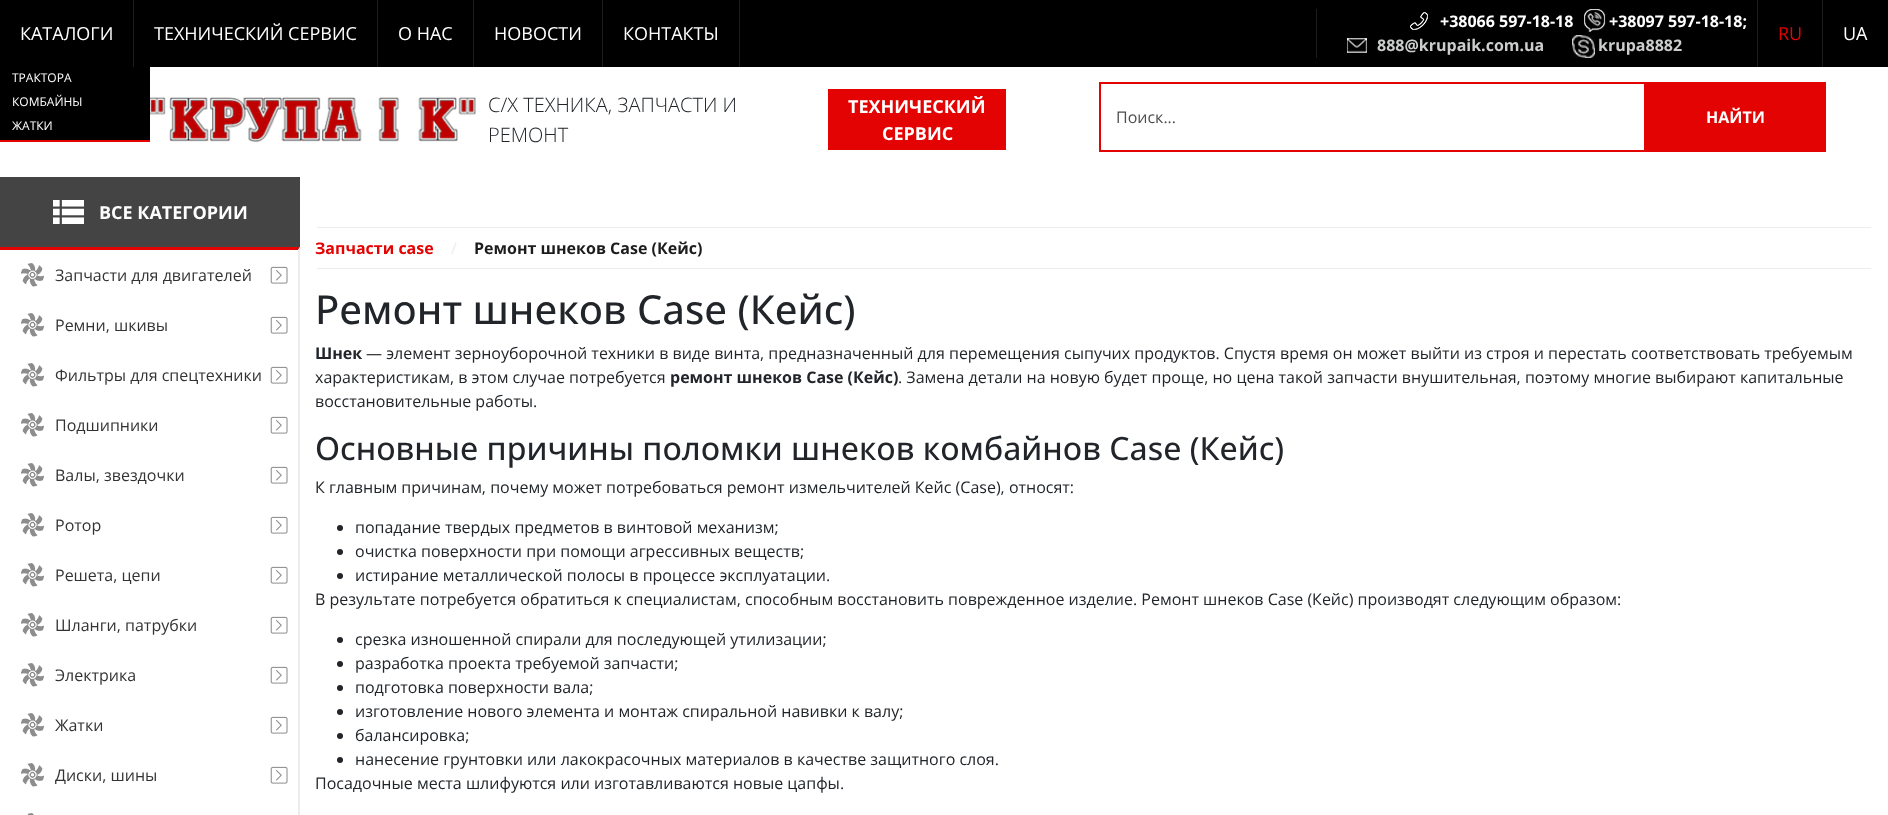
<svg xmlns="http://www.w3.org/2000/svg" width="1888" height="815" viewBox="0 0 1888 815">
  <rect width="100%" height="100%" fill="#ffffff"/>
  <rect x="0" y="0" width="1888" height="67" fill="#000000"/>
  <rect x="133" y="0" width="1" height="67" fill="#1c1c1c"/>
  <text x="20" y="40" font-family="Open Sans" font-size="18" fill="#ffffff">КАТАЛОГИ</text>
  <rect x="0" y="67" width="150" height="73" fill="#000000"/>
  <rect x="0" y="140" width="150" height="2" fill="#e40303"/>
  <text x="12" y="82" font-family="Open Sans" font-size="12" fill="#ffffff">ТРАКТОРА</text>
  <text x="12" y="106" font-family="Open Sans" font-size="12" fill="#ffffff">КОМБАЙНЫ</text>
  <text x="12" y="130" font-family="Open Sans" font-size="12" fill="#ffffff">ЖАТКИ</text>
  <rect x="377" y="0" width="1" height="67" fill="#1c1c1c"/>
  <text x="154" y="40" font-family="Open Sans" font-size="18" fill="#ffffff">ТЕХНИЧЕСКИЙ СЕРВИС</text>
  <rect x="473" y="0" width="1" height="67" fill="#1c1c1c"/>
  <text x="398" y="40" font-family="Open Sans" font-size="18" fill="#ffffff">О НАС</text>
  <rect x="602" y="0" width="1" height="67" fill="#1c1c1c"/>
  <text x="494" y="40" font-family="Open Sans" font-size="18" fill="#ffffff">НОВОСТИ</text>
  <rect x="739" y="0" width="1" height="67" fill="#1c1c1c"/>
  <text x="623" y="40" font-family="Open Sans" font-size="18" fill="#ffffff">КОНТАКТЫ</text>
  <rect x="1316" y="9" width="1" height="49" fill="#1c1c1c"/>
  <image x="1410" y="12" width="18" height="18" href="img1.png"/>
  <text x="1440" y="27" font-family="Open Sans" font-size="16" font-weight="bold" fill="#ffffff">+38066 597-18-18</text>
  <image x="1584" y="9" width="22" height="23" href="img2.png"/>
  <text x="1609" y="27" font-family="Open Sans" font-size="16" font-weight="bold" fill="#ffffff">+38097 597-18-18;</text>
  <image x="1347" y="38" width="20" height="15" href="img3.png"/>
  <text x="1377" y="51" font-family="Open Sans" font-size="16" font-weight="bold" fill="#cccdcd">888@krupaik.com.ua</text>
  <image x="1572" y="35" width="23" height="23" href="img4.png"/>
  <text x="1598" y="51" font-family="Open Sans" font-size="16" font-weight="bold" fill="#cccdcd">krupa8882</text>
  <rect x="1757" y="0" width="1" height="67" fill="#1c1c1c"/>
  <text x="1778" y="40" font-family="Open Sans" font-size="18" fill="#e40303">RU</text>
  <rect x="1822" y="0" width="1" height="67" fill="#1c1c1c"/>
  <text x="1843" y="40" font-family="Open Sans" font-size="18" fill="#ffffff">UA</text>
  <image x="150" y="97" width="326" height="45" href="img5.png"/>
  <text x="488" y="112" font-family="Open Sans" font-size="20" font-weight="300" fill="#212529">С/Х ТЕХНИКА, ЗАПЧАСТИ И</text>
  <text x="488" y="142" font-family="Open Sans" font-size="20" font-weight="300" fill="#212529">РЕМОНТ</text>
  <rect x="828" y="89" width="178" height="61" fill="#e40303"/>
  <text x="848" y="113" font-family="Open Sans" font-size="18" font-weight="bold" fill="#ffffff">ТЕХНИЧЕСКИЙ</text>
  <text x="882" y="140" font-family="Open Sans" font-size="18" font-weight="bold" fill="#ffffff">СЕРВИС</text>
  <rect x="1100" y="83" width="545" height="68" fill="none" stroke="#e40303" stroke-width="2"/>
  <text x="1116" y="123" font-family="Open Sans" font-size="16" fill="#4d4d4d">Поиск...</text>
  <rect x="1646" y="82" width="180" height="70" fill="#e40303"/>
  <text x="1706" y="123" font-family="Open Sans" font-size="16" font-weight="bold" fill="#ffffff">НАЙТИ</text>
  <rect x="0" y="177" width="300" height="70" fill="#444444"/>
  <image x="53" y="200" width="31" height="24" href="img6.png"/>
  <text x="99" y="219" font-family="Open Sans" font-size="18" font-weight="bold" fill="#ffffff">ВСЕ КАТЕГОРИИ</text>
  <path d="M0 247H300L298 250H0Z" fill="#e40303"/>
  <path d="M300 247V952L298 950V250Z" fill="#eaeced"/>
  <image x="270" y="266" width="18" height="18" href="img7.png"/>
  <image x="21" y="263" width="23" height="24" href="img8.png"/>
  <text x="55" y="281" font-family="Open Sans" font-size="16" fill="#333333">Запчасти для двигателей</text>
  <image x="270" y="316" width="18" height="18" href="img7.png"/>
  <image x="21" y="313" width="23" height="24" href="img8.png"/>
  <text x="55" y="331" font-family="Open Sans" font-size="16" fill="#333333">Ремни, шкивы</text>
  <image x="270" y="366" width="18" height="18" href="img7.png"/>
  <image x="21" y="363" width="23" height="24" href="img8.png"/>
  <text x="55" y="381" font-family="Open Sans" font-size="16" fill="#333333">Фильтры для спецтехники</text>
  <image x="270" y="416" width="18" height="18" href="img7.png"/>
  <image x="21" y="413" width="23" height="24" href="img8.png"/>
  <text x="55" y="431" font-family="Open Sans" font-size="16" fill="#333333">Подшипники</text>
  <image x="270" y="466" width="18" height="18" href="img7.png"/>
  <image x="21" y="463" width="23" height="24" href="img8.png"/>
  <text x="55" y="481" font-family="Open Sans" font-size="16" fill="#333333">Валы, звездочки</text>
  <image x="270" y="516" width="18" height="18" href="img7.png"/>
  <image x="21" y="513" width="23" height="24" href="img8.png"/>
  <text x="55" y="531" font-family="Open Sans" font-size="16" fill="#333333">Ротор</text>
  <image x="270" y="566" width="18" height="18" href="img7.png"/>
  <image x="21" y="563" width="23" height="24" href="img8.png"/>
  <text x="55" y="581" font-family="Open Sans" font-size="16" fill="#333333">Решета, цепи</text>
  <image x="270" y="616" width="18" height="18" href="img7.png"/>
  <image x="21" y="613" width="23" height="24" href="img8.png"/>
  <text x="55" y="631" font-family="Open Sans" font-size="16" fill="#333333">Шланги, патрубки</text>
  <image x="270" y="666" width="18" height="18" href="img7.png"/>
  <image x="21" y="663" width="23" height="24" href="img8.png"/>
  <text x="55" y="681" font-family="Open Sans" font-size="16" fill="#333333">Электрика</text>
  <image x="270" y="716" width="18" height="18" href="img7.png"/>
  <image x="21" y="713" width="23" height="24" href="img8.png"/>
  <text x="55" y="731" font-family="Open Sans" font-size="16" fill="#333333">Жатки</text>
  <image x="270" y="766" width="18" height="18" href="img7.png"/>
  <image x="21" y="763" width="23" height="24" href="img8.png"/>
  <text x="55" y="781" font-family="Open Sans" font-size="16" fill="#333333">Диски, шины</text>
  <image x="27" y="813" width="7" height="2" href="img9.png"/>
  <rect x="317" y="227" width="1554" height="1" fill="#eaeced"/>
  <rect x="317" y="268" width="1554" height="1" fill="#eaeced"/>
  <text x="315" y="254" font-family="Open Sans" font-size="16" font-weight="bold" fill="#e40303">Запчасти case</text>
  <text x="451" y="254" font-family="Open Sans" font-size="16" fill="#eaeced">/</text>
  <text x="474" y="254" font-family="Open Sans" font-size="16" font-weight="bold" fill="#1c1c1c">Ремонт шнеков Case (Кейс)</text>
  <text x="315" y="324" font-family="Open Sans" font-size="40" font-weight="500" fill="#212529">Ремонт шнеков Case (Кейс)</text>
  <text x="315" y="359" font-family="Open Sans" font-size="16" font-weight="bold" fill="#212529">Шнек</text>
  <text x="366" y="359" font-family="Open Sans" font-size="16" fill="#212529">— элемент зерноуборочной техники в виде винта, предназначенный для перемещения сыпучих продуктов. Спустя время он может выйти из строя и перестать соответствовать требуемым</text>
  <text x="315" y="383" font-family="Open Sans" font-size="16" fill="#212529">характеристикам, в этом случае потребуется</text>
  <text x="670" y="383" font-family="Open Sans" font-size="16" font-weight="bold" fill="#212529">ремонт шнеков Case (Кейс)</text>
  <text x="898" y="383" font-family="Open Sans" font-size="16" fill="#212529">. Замена детали на новую будет проще, но цена такой запчасти внушительная, поэтому многие выбирают капитальные</text>
  <text x="315" y="407" font-family="Open Sans" font-size="16" fill="#212529">восстановительные работы.</text>
  <text x="315" y="460" font-family="Open Sans" font-size="32" font-weight="500" fill="#212529">Основные причины поломки шнеков комбайнов Case (Кейс)</text>
  <text x="315" y="493" font-family="Open Sans" font-size="16" fill="#212529">К главным причинам, почему может потребоваться ремонт измельчителей Кейс (Case), относят:</text>
  <circle cx="340" cy="528" r="3" fill="#212529"/>
  <text x="355" y="533" font-family="Open Sans" font-size="16" fill="#212529">попадание твердых предметов в винтовой механизм;</text>
  <circle cx="340" cy="552" r="3" fill="#212529"/>
  <text x="355" y="557" font-family="Open Sans" font-size="16" fill="#212529">очистка поверхности при помощи агрессивных веществ;</text>
  <circle cx="340" cy="576" r="3" fill="#212529"/>
  <text x="355" y="581" font-family="Open Sans" font-size="16" fill="#212529">истирание металлической полосы в процессе эксплуатации.</text>
  <text x="315" y="605" font-family="Open Sans" font-size="16" fill="#212529">В результате потребуется обратиться к специалистам, способным восстановить поврежденное изделие. Ремонт шнеков Case (Кейс) производят следующим образом:</text>
  <circle cx="340" cy="640" r="3" fill="#212529"/>
  <text x="355" y="645" font-family="Open Sans" font-size="16" fill="#212529">срезка изношенной спирали для последующей утилизации;</text>
  <circle cx="340" cy="664" r="3" fill="#212529"/>
  <text x="355" y="669" font-family="Open Sans" font-size="16" fill="#212529">разработка проекта требуемой запчасти;</text>
  <circle cx="340" cy="688" r="3" fill="#212529"/>
  <text x="355" y="693" font-family="Open Sans" font-size="16" fill="#212529">подготовка поверхности вала;</text>
  <circle cx="340" cy="712" r="3" fill="#212529"/>
  <text x="355" y="717" font-family="Open Sans" font-size="16" fill="#212529">изготовление нового элемента и монтаж спиральной навивки к валу;</text>
  <circle cx="340" cy="736" r="3" fill="#212529"/>
  <text x="355" y="741" font-family="Open Sans" font-size="16" fill="#212529">балансировка;</text>
  <circle cx="340" cy="760" r="3" fill="#212529"/>
  <text x="355" y="765" font-family="Open Sans" font-size="16" fill="#212529">нанесение грунтовки или лакокрасочных материалов в качестве защитного слоя.</text>
  <text x="315" y="789" font-family="Open Sans" font-size="16" fill="#212529">Посадочные места шлифуются или изготавливаются новые цапфы.</text>
</svg>
